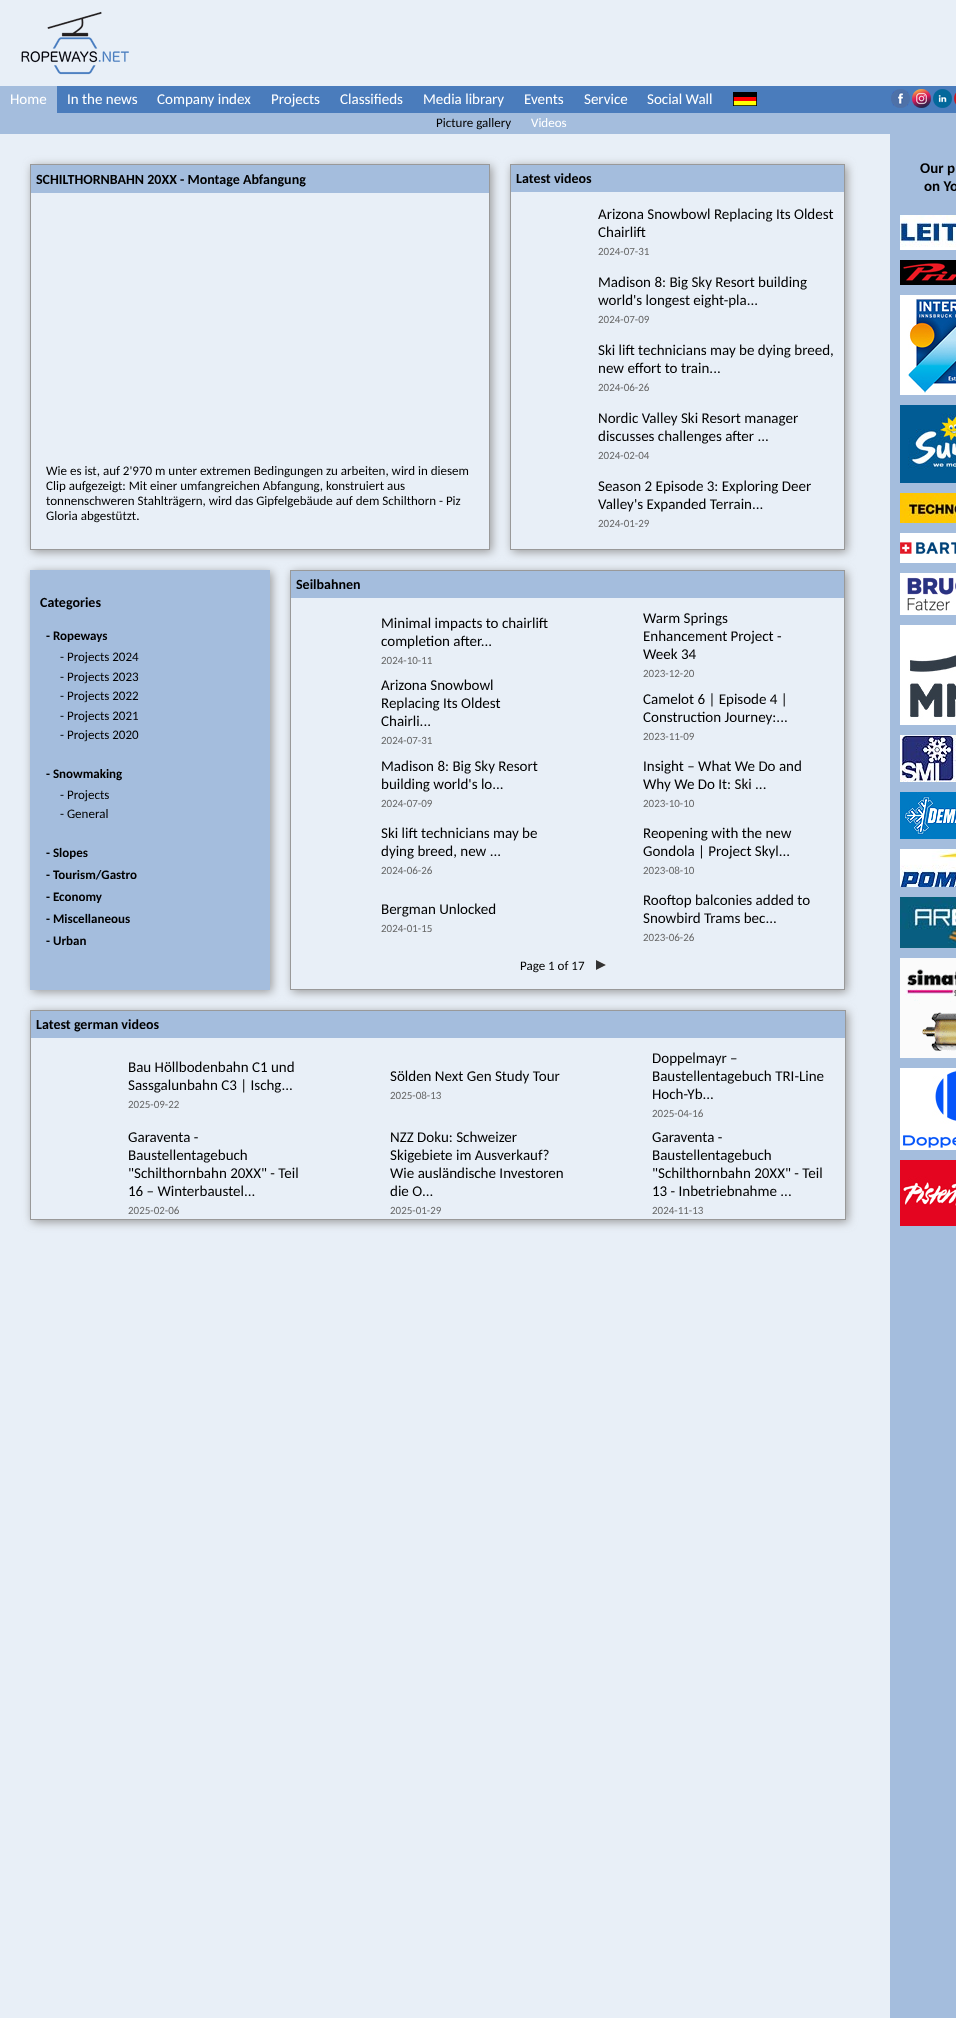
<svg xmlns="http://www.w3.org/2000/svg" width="956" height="2018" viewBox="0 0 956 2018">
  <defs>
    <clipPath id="clip1"><path d="M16 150H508V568H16ZM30 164H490V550H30Z" clip-rule="evenodd"/></clipPath>
    <filter id="blur1" x="-50%" y="-200%" width="200%" height="500%"><feGaussianBlur stdDeviation="5"/></filter>
    <clipPath id="clip2"><path d="M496 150H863V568H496ZM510 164H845V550H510Z" clip-rule="evenodd"/></clipPath>
    <clipPath id="clip3"><path d="M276 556H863V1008H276ZM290 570H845V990H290Z" clip-rule="evenodd"/></clipPath>
    <clipPath id="clip4"><path d="M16 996H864V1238H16ZM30 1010H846V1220H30Z" clip-rule="evenodd"/></clipPath>
  </defs>
  <rect width="100%" height="100%" fill="#e8eff7"/>
  <image x="21" y="11" width="108" height="64" href="img1.png"/>
  <rect x="57" y="86" width="899" height="27" fill="#4a7cbc"/>
  <rect x="0" y="86" width="57" height="27" fill="#a4bddd"/>
  <text x="10" y="104" font-family="Carlito" font-size="15" fill="#ffffff">Home</text>
  <text x="67" y="104" font-family="Carlito" font-size="15" fill="#ffffff">In the news</text>
  <text x="157" y="104" font-family="Carlito" font-size="15" fill="#ffffff">Company index</text>
  <text x="271" y="104" font-family="Carlito" font-size="15" fill="#ffffff">Projects</text>
  <text x="340" y="104" font-family="Carlito" font-size="15" fill="#ffffff">Classifieds</text>
  <text x="423" y="104" font-family="Carlito" font-size="15" fill="#ffffff">Media library</text>
  <text x="524" y="104" font-family="Carlito" font-size="15" fill="#ffffff">Events</text>
  <text x="584" y="104" font-family="Carlito" font-size="15" fill="#ffffff">Service</text>
  <text x="647" y="104" font-family="Carlito" font-size="15" fill="#ffffff">Social Wall</text>
  <image x="733" y="92" width="24" height="14" href="img2.png"/>
  <image x="891" y="89" width="65" height="19" href="img3.png"/>
  <rect x="0" y="113" width="956" height="21" fill="#a4bddd"/>
  <text x="436" y="127" font-family="Carlito" font-size="13" fill="#000000">Picture gallery</text>
  <text x="531" y="127" font-family="Carlito" font-size="13" fill="#ffffff">Videos</text>
  <g clip-path="url(#clip1)">
    <rect x="32" y="166" width="460" height="386" fill="#999999" filter="url(#blur1)"/>
  </g>
  <rect x="30.5" y="164.5" width="459" height="385" fill="none" stroke="#999999"/>
  <rect x="31" y="165" width="458" height="28" fill="#a4bddd"/>
  <text x="36" y="184" font-family="Carlito" font-size="14" font-weight="bold" fill="#000000">SCHILTHORNBAHN 20XX - Montage Abfangung</text>
  <text x="46" y="475" font-family="Carlito" font-size="13" fill="#000000">Wie es ist, auf 2'970 m unter extremen Bedingungen zu arbeiten, wird in diesem</text>
  <text x="46" y="490" font-family="Carlito" font-size="13" fill="#000000">Clip aufgezeigt: Mit einer umfangreichen Abfangung, konstruiert aus</text>
  <text x="46" y="505" font-family="Carlito" font-size="13" fill="#000000">tonnenschweren Stahlträgern, wird das Gipfelgebäude auf dem Schilthorn - Piz</text>
  <text x="46" y="520" font-family="Carlito" font-size="13" fill="#000000">Gloria abgestützt.</text>
  <g clip-path="url(#clip2)">
    <rect x="512" y="166" width="335" height="386" fill="#999999" filter="url(#blur1)"/>
  </g>
  <rect x="510.5" y="164.5" width="334" height="385" fill="none" stroke="#999999"/>
  <rect x="511" y="165" width="333" height="27" fill="#a4bddd"/>
  <text x="516" y="183" font-family="Carlito" font-size="14" font-weight="bold" fill="#000000">Latest videos</text>
  <text x="598" y="219" font-family="Carlito" font-size="15" fill="#000000">Arizona Snowbowl Replacing Its Oldest</text>
  <text x="598" y="237" font-family="Carlito" font-size="15" fill="#000000">Chairlift</text>
  <text x="598" y="255" font-family="Carlito" font-size="11" fill="#666666">2024-07-31</text>
  <text x="598" y="287" font-family="Carlito" font-size="15" fill="#000000">Madison 8: Big Sky Resort building</text>
  <text x="598" y="305" font-family="Carlito" font-size="15" fill="#000000">world's longest eight-pla...</text>
  <text x="598" y="323" font-family="Carlito" font-size="11" fill="#666666">2024-07-09</text>
  <text x="598" y="355" font-family="Carlito" font-size="15" fill="#000000">Ski lift technicians may be dying breed,</text>
  <text x="598" y="373" font-family="Carlito" font-size="15" fill="#000000">new effort to train...</text>
  <text x="598" y="391" font-family="Carlito" font-size="11" fill="#666666">2024-06-26</text>
  <text x="598" y="423" font-family="Carlito" font-size="15" fill="#000000">Nordic Valley Ski Resort manager</text>
  <text x="598" y="441" font-family="Carlito" font-size="15" fill="#000000">discusses challenges after ...</text>
  <text x="598" y="459" font-family="Carlito" font-size="11" fill="#666666">2024-02-04</text>
  <text x="598" y="491" font-family="Carlito" font-size="15" fill="#000000">Season 2 Episode 3: Exploring Deer</text>
  <text x="598" y="509" font-family="Carlito" font-size="15" fill="#000000">Valley's Expanded Terrain...</text>
  <text x="598" y="527" font-family="Carlito" font-size="11" fill="#666666">2024-01-29</text>
  <rect x="32" y="572" width="240" height="420" fill="#999999" filter="url(#blur1)"/>
  <rect x="30" y="570" width="240" height="420" fill="#a4bddd"/>
  <text x="40" y="607" font-family="Carlito" font-size="14" font-weight="bold" fill="#000000">Categories</text>
  <text x="46" y="640" font-family="Carlito" font-size="13" font-weight="bold" fill="#000000">- Ropeways</text>
  <text x="60" y="661" font-family="Carlito" font-size="13" fill="#000000">- Projects 2024</text>
  <text x="60" y="681" font-family="Carlito" font-size="13" fill="#000000">- Projects 2023</text>
  <text x="60" y="700" font-family="Carlito" font-size="13" fill="#000000">- Projects 2022</text>
  <text x="60" y="720" font-family="Carlito" font-size="13" fill="#000000">- Projects 2021</text>
  <text x="60" y="739" font-family="Carlito" font-size="13" fill="#000000">- Projects 2020</text>
  <text x="46" y="778" font-family="Carlito" font-size="13" font-weight="bold" fill="#000000">- Snowmaking</text>
  <text x="60" y="799" font-family="Carlito" font-size="13" fill="#000000">- Projects</text>
  <text x="60" y="818" font-family="Carlito" font-size="13" fill="#000000">- General</text>
  <text x="46" y="857" font-family="Carlito" font-size="13" font-weight="bold" fill="#000000">- Slopes</text>
  <text x="46" y="879" font-family="Carlito" font-size="13" font-weight="bold" fill="#000000">- Tourism/Gastro</text>
  <text x="46" y="901" font-family="Carlito" font-size="13" font-weight="bold" fill="#000000">- Economy</text>
  <text x="46" y="923" font-family="Carlito" font-size="13" font-weight="bold" fill="#000000">- Miscellaneous</text>
  <text x="46" y="945" font-family="Carlito" font-size="13" font-weight="bold" fill="#000000">- Urban</text>
  <g clip-path="url(#clip3)">
    <rect x="292" y="572" width="555" height="420" fill="#999999" filter="url(#blur1)"/>
  </g>
  <rect x="290.5" y="570.5" width="554" height="419" fill="none" stroke="#999999"/>
  <rect x="291" y="571" width="553" height="27" fill="#a4bddd"/>
  <text x="296" y="589" font-family="Carlito" font-size="14" font-weight="bold" fill="#000000">Seilbahnen</text>
  <text x="381" y="628" font-family="Carlito" font-size="15" fill="#000000">Minimal impacts to chairlift</text>
  <text x="381" y="646" font-family="Carlito" font-size="15" fill="#000000">completion after...</text>
  <text x="381" y="664" font-family="Carlito" font-size="11" fill="#666666">2024-10-11</text>
  <text x="381" y="690" font-family="Carlito" font-size="15" fill="#000000">Arizona Snowbowl</text>
  <text x="381" y="708" font-family="Carlito" font-size="15" fill="#000000">Replacing Its Oldest</text>
  <text x="381" y="726" font-family="Carlito" font-size="15" fill="#000000">Chairli...</text>
  <text x="381" y="744" font-family="Carlito" font-size="11" fill="#666666">2024-07-31</text>
  <text x="381" y="771" font-family="Carlito" font-size="15" fill="#000000">Madison 8: Big Sky Resort</text>
  <text x="381" y="789" font-family="Carlito" font-size="15" fill="#000000">building world's lo...</text>
  <text x="381" y="807" font-family="Carlito" font-size="11" fill="#666666">2024-07-09</text>
  <text x="381" y="838" font-family="Carlito" font-size="15" fill="#000000">Ski lift technicians may be</text>
  <text x="381" y="856" font-family="Carlito" font-size="15" fill="#000000">dying breed, new ...</text>
  <text x="381" y="874" font-family="Carlito" font-size="11" fill="#666666">2024-06-26</text>
  <text x="381" y="914" font-family="Carlito" font-size="15" fill="#000000">Bergman Unlocked</text>
  <text x="381" y="932" font-family="Carlito" font-size="11" fill="#666666">2024-01-15</text>
  <text x="643" y="623" font-family="Carlito" font-size="15" fill="#000000">Warm Springs</text>
  <text x="643" y="641" font-family="Carlito" font-size="15" fill="#000000">Enhancement Project -</text>
  <text x="643" y="659" font-family="Carlito" font-size="15" fill="#000000">Week 34</text>
  <text x="643" y="677" font-family="Carlito" font-size="11" fill="#666666">2023-12-20</text>
  <text x="643" y="704" font-family="Carlito" font-size="15" fill="#000000">Camelot 6 | Episode 4 |</text>
  <text x="643" y="722" font-family="Carlito" font-size="15" fill="#000000">Construction Journey:...</text>
  <text x="643" y="740" font-family="Carlito" font-size="11" fill="#666666">2023-11-09</text>
  <text x="643" y="771" font-family="Carlito" font-size="15" fill="#000000">Insight – What We Do and</text>
  <text x="643" y="789" font-family="Carlito" font-size="15" fill="#000000">Why We Do It: Ski ...</text>
  <text x="643" y="807" font-family="Carlito" font-size="11" fill="#666666">2023-10-10</text>
  <text x="643" y="838" font-family="Carlito" font-size="15" fill="#000000">Reopening with the new</text>
  <text x="643" y="856" font-family="Carlito" font-size="15" fill="#000000">Gondola | Project Skyl...</text>
  <text x="643" y="874" font-family="Carlito" font-size="11" fill="#666666">2023-08-10</text>
  <text x="643" y="905" font-family="Carlito" font-size="15" fill="#000000">Rooftop balconies added to</text>
  <text x="643" y="923" font-family="Carlito" font-size="15" fill="#000000">Snowbird Trams bec...</text>
  <text x="643" y="941" font-family="Carlito" font-size="11" fill="#666666">2023-06-26</text>
  <text x="520" y="970" font-family="Carlito" font-size="13" fill="#000000">Page 1 of 17</text>
  <image x="596" y="960" width="10" height="10" href="img4.png"/>
  <g clip-path="url(#clip4)">
    <rect x="32" y="1012" width="816" height="210" fill="#999999" filter="url(#blur1)"/>
  </g>
  <rect x="30.5" y="1010.5" width="815" height="209" fill="none" stroke="#999999"/>
  <rect x="31" y="1011" width="814" height="27" fill="#a4bddd"/>
  <text x="36" y="1029" font-family="Carlito" font-size="14" font-weight="bold" fill="#000000">Latest german videos</text>
  <text x="128" y="1072" font-family="Carlito" font-size="15" fill="#000000">Bau Höllbodenbahn C1 und</text>
  <text x="128" y="1090" font-family="Carlito" font-size="15" fill="#000000">Sassgalunbahn C3 | Ischg...</text>
  <text x="128" y="1108" font-family="Carlito" font-size="11" fill="#666666">2025-09-22</text>
  <text x="390" y="1081" font-family="Carlito" font-size="15" fill="#000000">Sölden Next Gen Study Tour</text>
  <text x="390" y="1099" font-family="Carlito" font-size="11" fill="#666666">2025-08-13</text>
  <text x="652" y="1063" font-family="Carlito" font-size="15" fill="#000000">Doppelmayr –</text>
  <text x="652" y="1081" font-family="Carlito" font-size="15" fill="#000000">Baustellentagebuch TRI-Line</text>
  <text x="652" y="1099" font-family="Carlito" font-size="15" fill="#000000">Hoch-Yb...</text>
  <text x="652" y="1117" font-family="Carlito" font-size="11" fill="#666666">2025-04-16</text>
  <text x="128" y="1142" font-family="Carlito" font-size="15" fill="#000000">Garaventa -</text>
  <text x="128" y="1160" font-family="Carlito" font-size="15" fill="#000000">Baustellentagebuch</text>
  <text x="128" y="1178" font-family="Carlito" font-size="15" fill="#000000">"Schilthornbahn 20XX" - Teil</text>
  <text x="128" y="1196" font-family="Carlito" font-size="15" fill="#000000">16 – Winterbaustel...</text>
  <text x="128" y="1214" font-family="Carlito" font-size="11" fill="#666666">2025-02-06</text>
  <text x="390" y="1142" font-family="Carlito" font-size="15" fill="#000000">NZZ Doku: Schweizer</text>
  <text x="390" y="1160" font-family="Carlito" font-size="15" fill="#000000">Skigebiete im Ausverkauf?</text>
  <text x="390" y="1178" font-family="Carlito" font-size="15" fill="#000000">Wie ausländische Investoren</text>
  <text x="390" y="1196" font-family="Carlito" font-size="15" fill="#000000">die O...</text>
  <text x="390" y="1214" font-family="Carlito" font-size="11" fill="#666666">2025-01-29</text>
  <text x="652" y="1142" font-family="Carlito" font-size="15" fill="#000000">Garaventa -</text>
  <text x="652" y="1160" font-family="Carlito" font-size="15" fill="#000000">Baustellentagebuch</text>
  <text x="652" y="1178" font-family="Carlito" font-size="15" fill="#000000">"Schilthornbahn 20XX" - Teil</text>
  <text x="652" y="1196" font-family="Carlito" font-size="15" fill="#000000">13 - Inbetriebnahme ...</text>
  <text x="652" y="1214" font-family="Carlito" font-size="11" fill="#666666">2024-11-13</text>
  <rect x="890" y="134" width="66" height="1884" fill="#a4bddd"/>
  <text x="920" y="173" font-family="Carlito" font-size="15" font-weight="bold" fill="#000000">Our p</text>
  <text x="924" y="191" font-family="Carlito" font-size="15" font-weight="bold" fill="#000000">on Yo</text>
  <image x="900" y="215" width="56" height="35" href="img5.png"/>
  <image x="900" y="260" width="56" height="25" href="img6.png"/>
  <image x="900" y="295" width="56" height="100" href="img7.png"/>
  <image x="900" y="405" width="56" height="78" href="img8.png"/>
  <image x="900" y="493" width="56" height="30" href="img9.png"/>
  <image x="900" y="533" width="56" height="30" href="img10.png"/>
  <image x="900" y="573" width="56" height="42" href="img11.png"/>
  <image x="900" y="625" width="56" height="100" href="img12.png"/>
  <image x="900" y="735" width="56" height="47" href="img13.png"/>
  <image x="900" y="792" width="56" height="47" href="img14.png"/>
  <image x="900" y="849" width="56" height="38" href="img15.png"/>
  <image x="900" y="897" width="56" height="51" href="img16.png"/>
  <image x="900" y="958" width="56" height="100" href="img17.png"/>
  <image x="900" y="1068" width="56" height="82" href="img18.png"/>
  <image x="900" y="1160" width="56" height="66" href="img19.png"/>
</svg>
